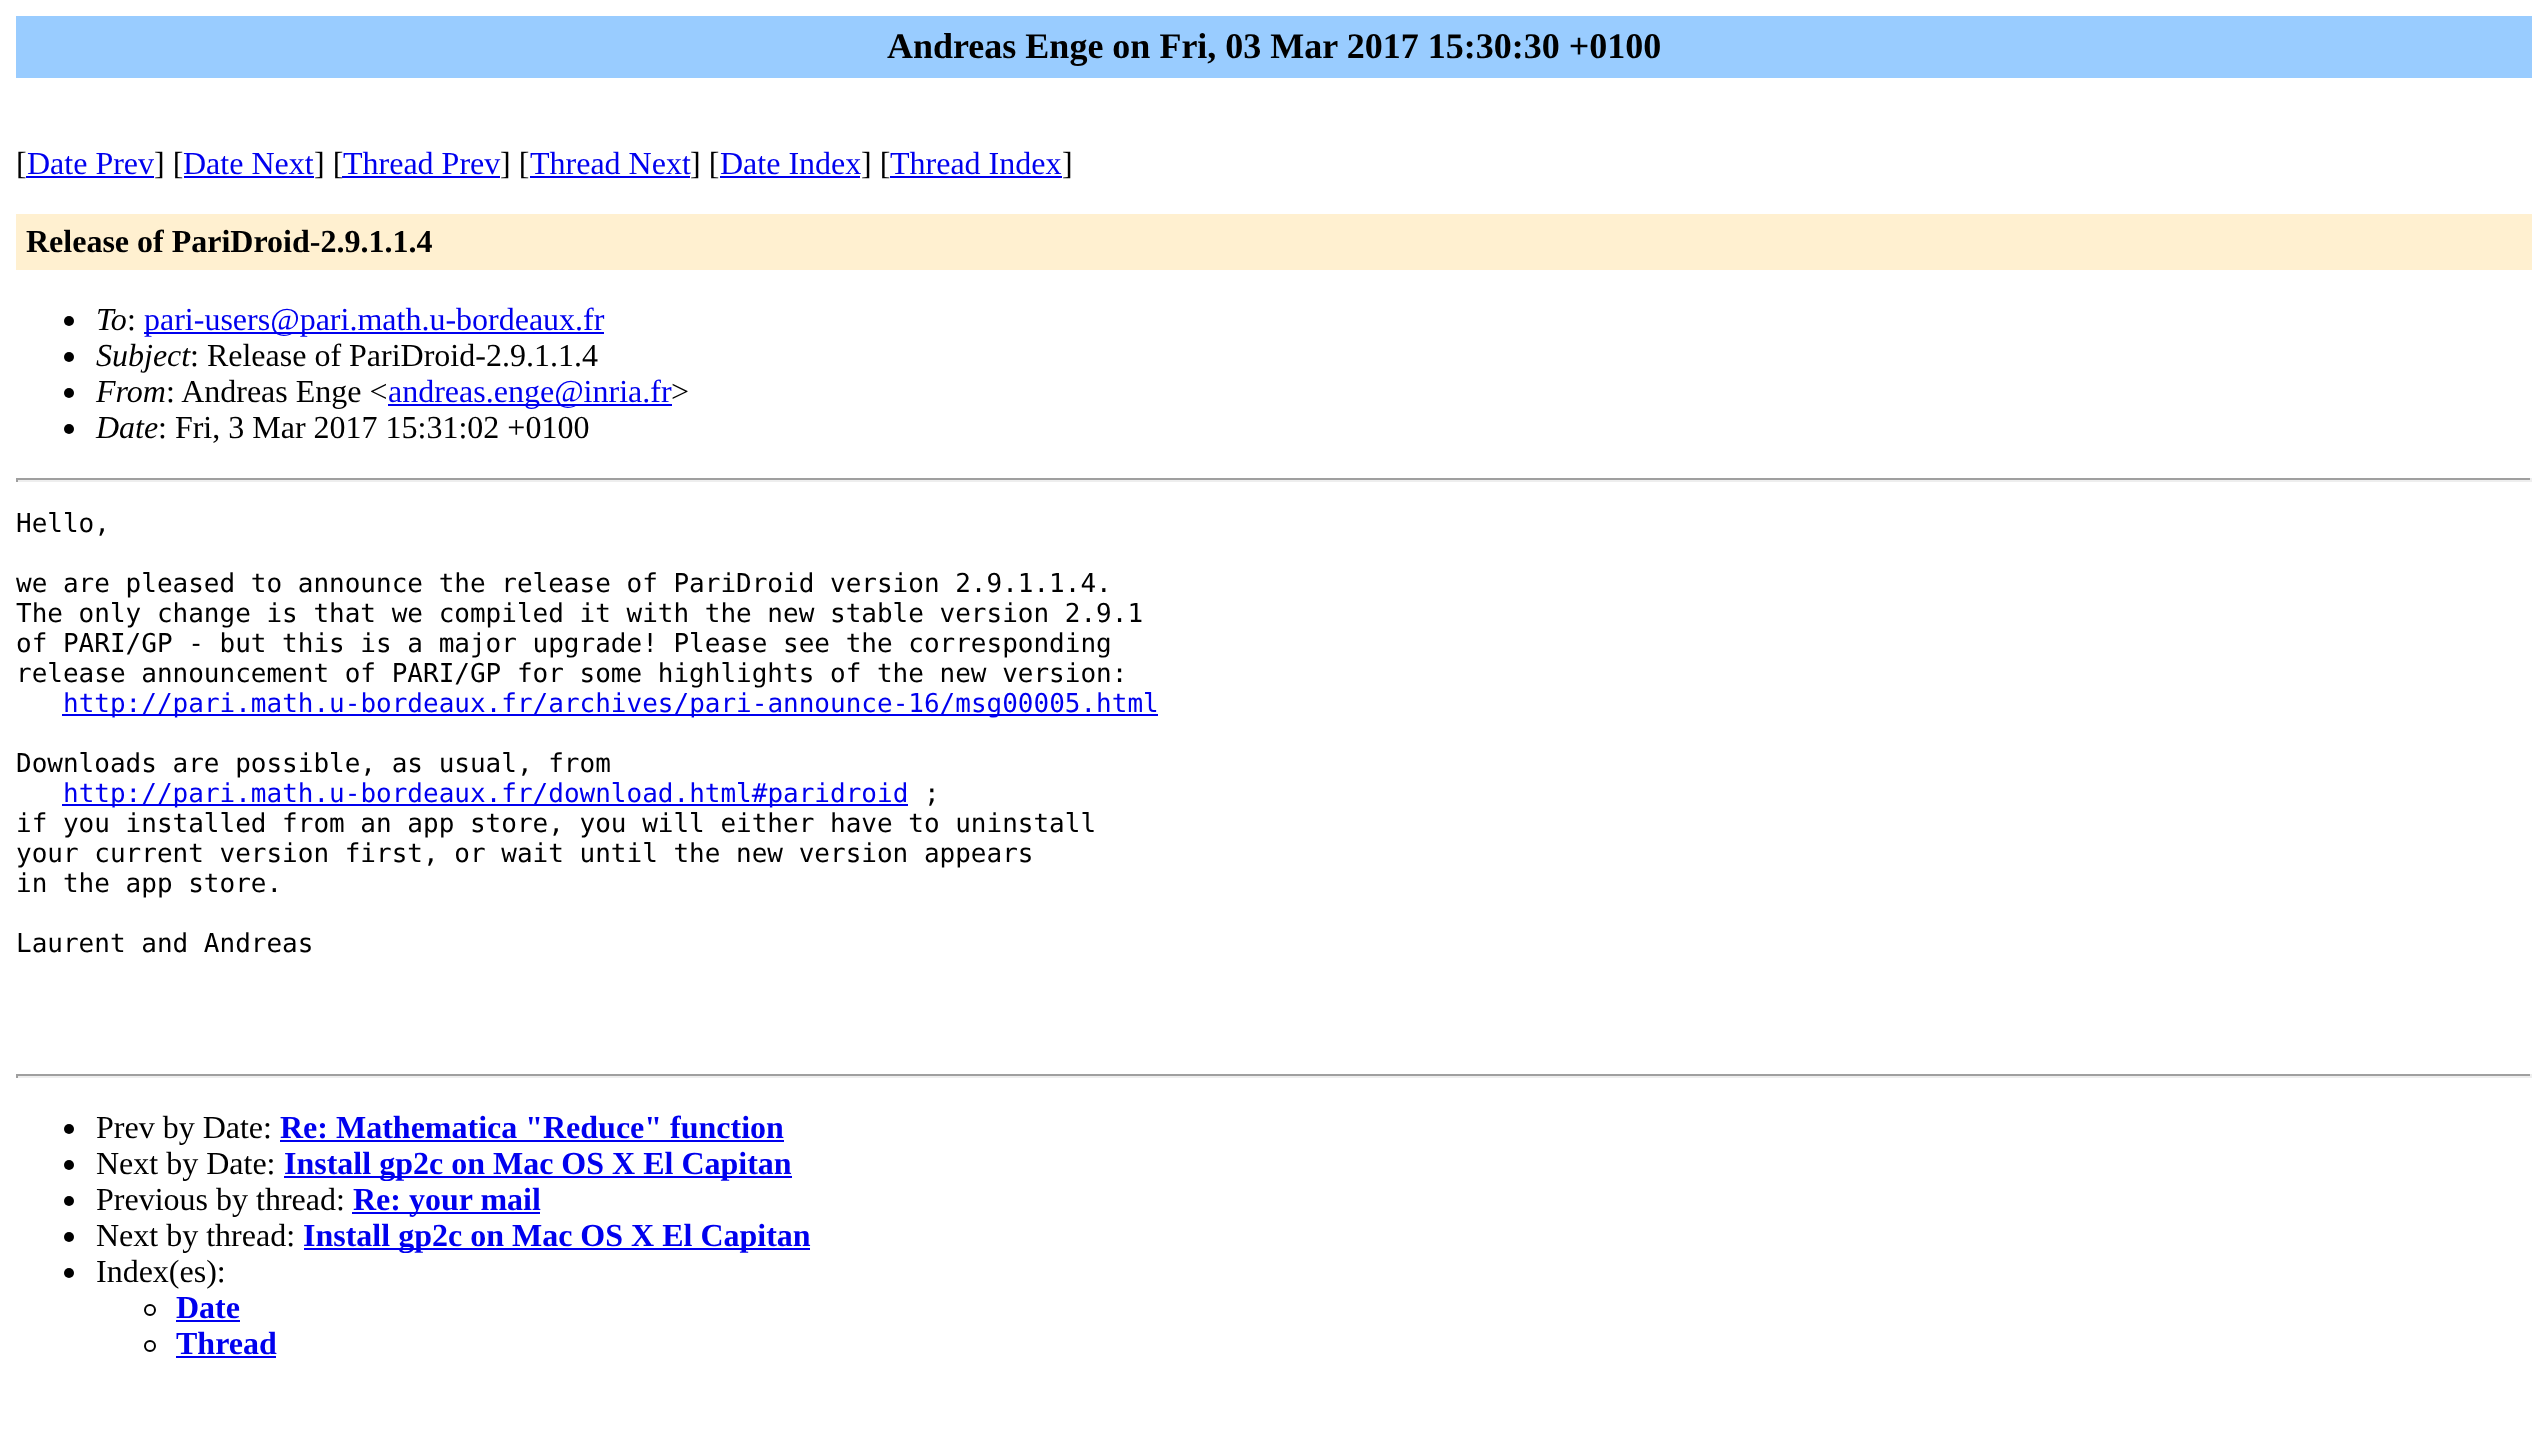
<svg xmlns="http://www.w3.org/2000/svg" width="2548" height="1434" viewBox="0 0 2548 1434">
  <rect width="100%" height="100%" fill="#ffffff"/>
  <rect x="16" y="16" width="2516" height="62" fill="#99ccff"/>
  <text x="887" y="58" font-family="Liberation Serif" font-size="36" font-weight="bold" fill="#000000">Andreas Enge on Fri, 03 Mar 2017 15:30:30 +0100</text>
  <text x="16" y="174" font-family="Liberation Serif" font-size="32" fill="#000000">[</text>
  <text x="27" y="174" font-family="Liberation Serif" font-size="32" fill="#0000ee">Date Prev</text>
  <rect x="26" y="176" width="128" height="2" fill="#0000ee"/>
  <text x="154" y="174" font-family="Liberation Serif" font-size="32" fill="#000000">] [</text>
  <text x="183" y="174" font-family="Liberation Serif" font-size="32" fill="#0000ee">Date Next</text>
  <rect x="184" y="176" width="130" height="2" fill="#0000ee"/>
  <text x="314" y="174" font-family="Liberation Serif" font-size="32" fill="#000000">] [</text>
  <text x="343" y="174" font-family="Liberation Serif" font-size="32" fill="#0000ee">Thread Prev</text>
  <rect x="342" y="176" width="158" height="2" fill="#0000ee"/>
  <text x="500" y="174" font-family="Liberation Serif" font-size="32" fill="#000000">] [</text>
  <text x="530" y="174" font-family="Liberation Serif" font-size="32" fill="#0000ee">Thread Next</text>
  <rect x="530" y="176" width="160" height="2" fill="#0000ee"/>
  <text x="690" y="174" font-family="Liberation Serif" font-size="32" fill="#000000">] [</text>
  <text x="720" y="174" font-family="Liberation Serif" font-size="32" fill="#0000ee">Date Index</text>
  <rect x="720" y="176" width="140" height="2" fill="#0000ee"/>
  <text x="861" y="174" font-family="Liberation Serif" font-size="32" fill="#000000">] [</text>
  <text x="890" y="174" font-family="Liberation Serif" font-size="32" fill="#0000ee">Thread Index</text>
  <rect x="890" y="176" width="172" height="2" fill="#0000ee"/>
  <text x="1062" y="174" font-family="Liberation Serif" font-size="32" fill="#000000">]</text>
  <rect x="16" y="214" width="2516" height="56" fill="#fff0d0"/>
  <text x="26" y="252" font-family="Liberation Serif" font-size="32" font-weight="bold" fill="#000000">Release of PariDroid-2.9.1.1.4</text>
  <circle cx="69" cy="321" r="5" fill="#000000"/>
  <text x="96" y="330" font-family="Liberation Serif" font-size="32" font-style="italic" fill="#000000">To</text>
  <text x="127" y="330" font-family="Liberation Serif" font-size="32" fill="#000000">:</text>
  <rect x="144" y="332" width="460" height="2" fill="#0000ee"/>
  <text x="144" y="330" font-family="Liberation Serif" font-size="32" fill="#0000ee">pari-users@pari.math.u-bordeaux.fr</text>
  <circle cx="69" cy="357" r="5" fill="#000000"/>
  <text x="96" y="366" font-family="Liberation Serif" font-size="32" font-style="italic" fill="#000000">Subject</text>
  <text x="190" y="366" font-family="Liberation Serif" font-size="32" fill="#000000">: Release of PariDroid-2.9.1.1.4</text>
  <circle cx="69" cy="393" r="5" fill="#000000"/>
  <text x="96" y="402" font-family="Liberation Serif" font-size="32" font-style="italic" fill="#000000">From</text>
  <text x="166" y="402" font-family="Liberation Serif" font-size="32" fill="#000000">: Andreas Enge &lt;</text>
  <rect x="388" y="404" width="284" height="2" fill="#0000ee"/>
  <text x="388" y="402" font-family="Liberation Serif" font-size="32" fill="#0000ee">andreas.enge@inria.fr</text>
  <text x="671" y="402" font-family="Liberation Serif" font-size="32" fill="#000000">&gt;</text>
  <circle cx="69" cy="429" r="5" fill="#000000"/>
  <text x="96" y="438" font-family="Liberation Serif" font-size="32" font-style="italic" fill="#000000">Date</text>
  <text x="158" y="438" font-family="Liberation Serif" font-size="32" fill="#000000">: Fri, 3 Mar 2017 15:31:02 +0100</text>
  <rect x="16" y="478" width="2516" height="2" fill="#9f9f9f"/>
  <rect x="2530" y="478" width="2" height="4" fill="#eeeeee"/>
  <rect x="16" y="480" width="2516" height="2" fill="#eeeeee"/>
  <rect x="16" y="478" width="2" height="4" fill="#9f9f9f"/>
  <text x="16" y="532" font-family="DejaVu Sans Mono" font-size="26" fill="#000000">Hello,</text>
  <text x="16" y="592" font-family="DejaVu Sans Mono" font-size="26" fill="#000000">we are pleased to announce the release of PariDroid version 2.9.1.1.4.</text>
  <text x="16" y="622" font-family="DejaVu Sans Mono" font-size="26" fill="#000000">The only change is that we compiled it with the new stable version 2.9.1</text>
  <text x="16" y="652" font-family="DejaVu Sans Mono" font-size="26" fill="#000000">of PARI/GP - but this is a major upgrade! Please see the corresponding</text>
  <text x="16" y="682" font-family="DejaVu Sans Mono" font-size="26" fill="#000000">release announcement of PARI/GP for some highlights of the new version:</text>
  <rect x="62" y="714" width="1096" height="2" fill="#0000ee"/>
  <text x="63" y="712" font-family="DejaVu Sans Mono" font-size="26" fill="#0000ee">http://pari.math.u-bordeaux.fr/archives/pari-announce-16/msg00005.html</text>
  <text x="16" y="772" font-family="DejaVu Sans Mono" font-size="26" fill="#000000">Downloads are possible, as usual, from</text>
  <rect x="62" y="804" width="846" height="2" fill="#0000ee"/>
  <text x="63" y="802" font-family="DejaVu Sans Mono" font-size="26" fill="#0000ee">http://pari.math.u-bordeaux.fr/download.html#paridroid</text>
  <text x="924" y="802" font-family="DejaVu Sans Mono" font-size="26" fill="#000000">;</text>
  <text x="16" y="832" font-family="DejaVu Sans Mono" font-size="26" fill="#000000">if you installed from an app store, you will either have to uninstall</text>
  <text x="16" y="862" font-family="DejaVu Sans Mono" font-size="26" fill="#000000">your current version first, or wait until the new version appears</text>
  <text x="16" y="892" font-family="DejaVu Sans Mono" font-size="26" fill="#000000">in the app store.</text>
  <text x="16" y="952" font-family="DejaVu Sans Mono" font-size="26" fill="#000000">Laurent and Andreas</text>
  <rect x="16" y="1074" width="2516" height="2" fill="#9f9f9f"/>
  <rect x="2530" y="1074" width="2" height="4" fill="#eeeeee"/>
  <rect x="16" y="1076" width="2516" height="2" fill="#eeeeee"/>
  <rect x="16" y="1074" width="2" height="4" fill="#9f9f9f"/>
  <circle cx="69" cy="1129" r="5" fill="#000000"/>
  <text x="96" y="1138" font-family="Liberation Serif" font-size="32" fill="#000000">Prev by Date:</text>
  <text x="280" y="1138" font-family="Liberation Serif" font-size="32" font-weight="bold" fill="#0000ee">Re: Mathematica "Reduce" function</text>
  <rect x="280" y="1140" width="504" height="2" fill="#0000ee"/>
  <circle cx="69" cy="1165" r="5" fill="#000000"/>
  <text x="96" y="1174" font-family="Liberation Serif" font-size="32" fill="#000000">Next by Date:</text>
  <rect x="284" y="1176" width="508" height="2" fill="#0000ee"/>
  <text x="284" y="1174" font-family="Liberation Serif" font-size="32" font-weight="bold" fill="#0000ee">Install gp2c on Mac OS X El Capitan</text>
  <circle cx="69" cy="1201" r="5" fill="#000000"/>
  <text x="96" y="1210" font-family="Liberation Serif" font-size="32" fill="#000000">Previous by thread:</text>
  <rect x="352" y="1212" width="188" height="2" fill="#0000ee"/>
  <text x="353" y="1210" font-family="Liberation Serif" font-size="32" font-weight="bold" fill="#0000ee">Re: your mail</text>
  <circle cx="69" cy="1237" r="5" fill="#000000"/>
  <text x="96" y="1246" font-family="Liberation Serif" font-size="32" fill="#000000">Next by thread:</text>
  <rect x="304" y="1248" width="506" height="2" fill="#0000ee"/>
  <text x="303" y="1246" font-family="Liberation Serif" font-size="32" font-weight="bold" fill="#0000ee">Install gp2c on Mac OS X El Capitan</text>
  <circle cx="69" cy="1273" r="5" fill="#000000"/>
  <text x="96" y="1282" font-family="Liberation Serif" font-size="32" fill="#000000">Index(es):</text>
  <circle cx="150" cy="1310" r="5" fill="none" stroke="#000000" stroke-width="2"/>
  <text x="176" y="1318" font-family="Liberation Serif" font-size="32" font-weight="bold" fill="#0000ee">Date</text>
  <rect x="176" y="1320" width="64" height="2" fill="#0000ee"/>
  <circle cx="150" cy="1346" r="5" fill="none" stroke="#000000" stroke-width="2"/>
  <text x="176" y="1354" font-family="Liberation Serif" font-size="32" font-weight="bold" fill="#0000ee">Thread</text>
  <rect x="176" y="1356" width="100" height="2" fill="#0000ee"/>
</svg>
